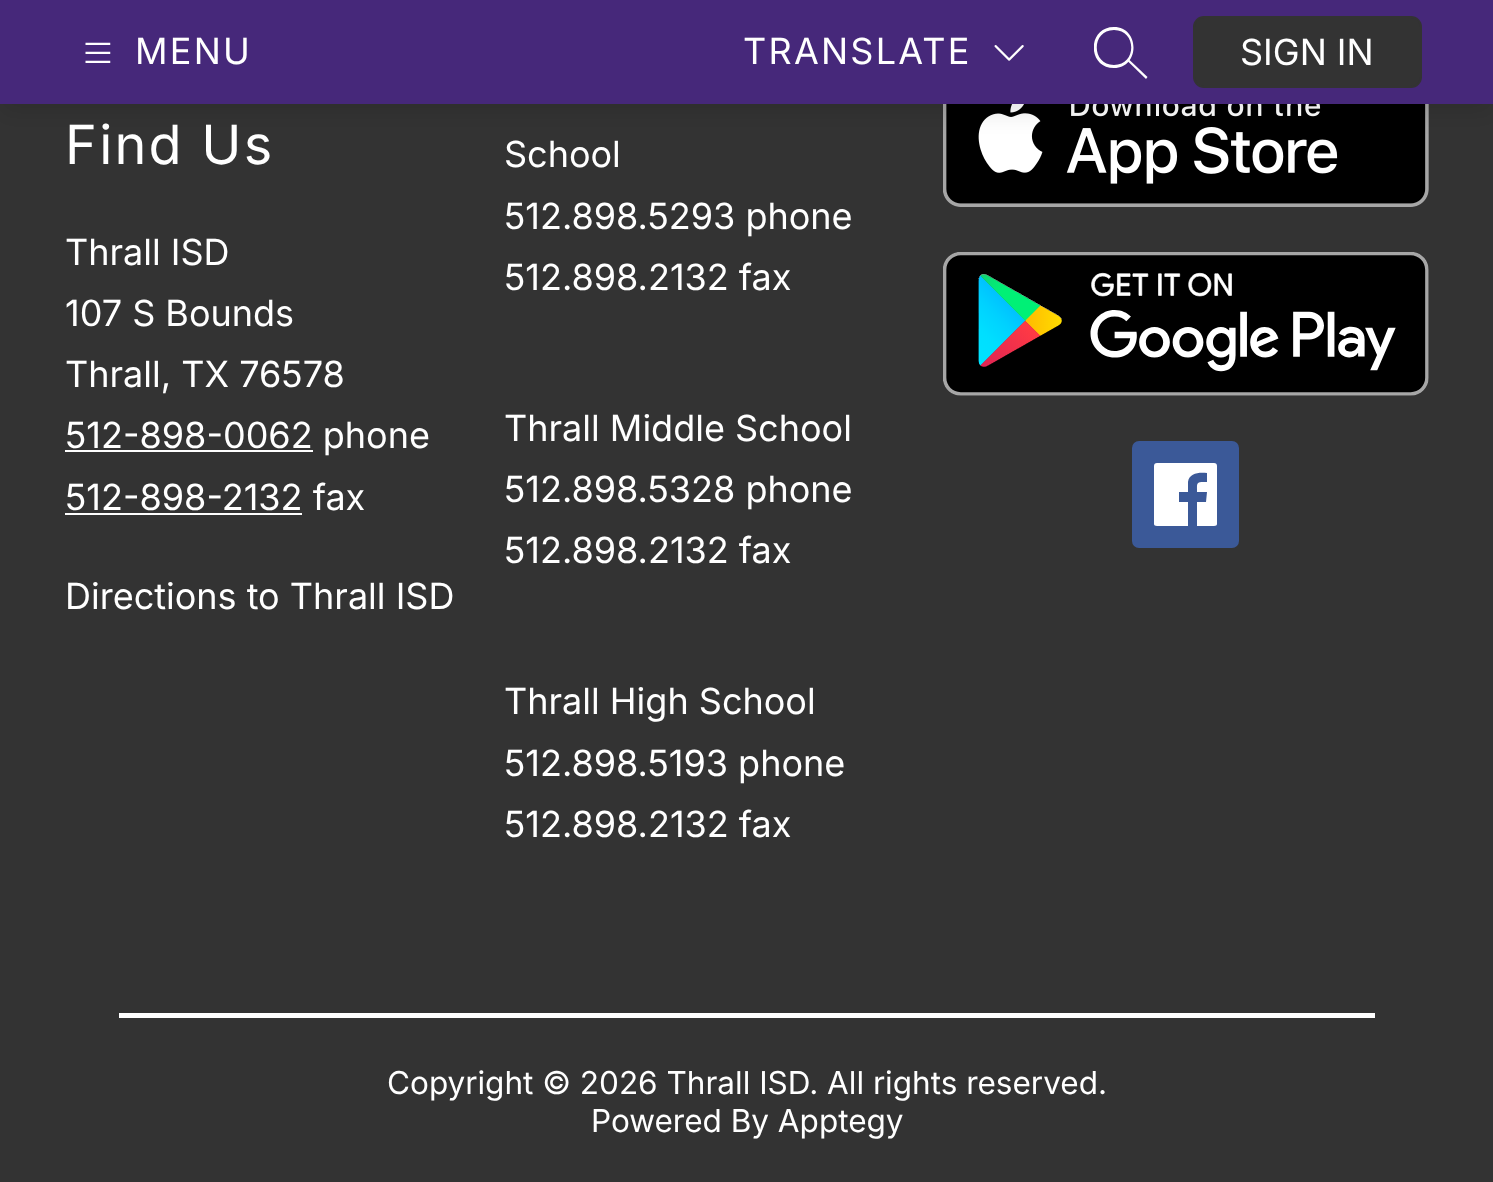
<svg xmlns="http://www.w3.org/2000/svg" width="1493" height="1182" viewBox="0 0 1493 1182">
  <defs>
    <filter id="blur1" x="-50%" y="-200%" width="200%" height="500%"><feGaussianBlur stdDeviation="11"/></filter>
    <clipPath id="clip1"><rect x="1094" y="25" width="54" height="54"/></clipPath>
  </defs>
  <rect width="100%" height="100%" fill="#333333"/>
  <image x="943" y="104" width="486" height="103" href="img3.png"/>
  <rect x="0" y="9" width="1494" height="104" fill="#000000" fill-opacity="0.1" filter="url(#blur1)"/>
  <rect x="0" y="0" width="1493" height="104" fill="#46287a"/>
  <image x="85" y="42" width="26" height="21" href="img1.png"/>
  <text x="135" y="64" font-family="Inter" font-size="36" letter-spacing="2.25" fill="#ffffff">MENU</text>
  <text x="743" y="64" font-family="Inter" font-size="36" letter-spacing="2.25" fill="#ffffff">TRANSLATE</text>
  <image x="994" y="45" width="30" height="16" href="img2.png"/>
  <g clip-path="url(#clip1)">
    <path d="M1114 65C1137 65 1137 30 1114 30C1091 30 1091 65 1114 65ZM1114 68C1140 68 1140 27 1114 27C1087 27 1087 68 1114 68Z" fill="#ffffff" fill-rule="evenodd"/>
  </g>
  <path d="M1146 79L1127.5 61L1129 59.5L1147.5 77Z" fill="#ffffff" fill-rule="evenodd"/>
  <rect x="1194" y="17" width="227" height="70" rx="10" fill="#333333" stroke="#333333" stroke-width="2"/>
  <text x="1240" y="65" font-family="Inter" font-size="36" fill="#ffffff">SIGN IN</text>
  <text x="65" y="164" font-family="Inter" font-size="54" letter-spacing="2.25" fill="#ffffff">Find Us</text>
  <text x="65" y="265" font-family="Inter" font-size="36" fill="#ffffff">Thrall ISD</text>
  <text x="65" y="326" font-family="Inter" font-size="36" fill="#ffffff">107 S Bounds</text>
  <text x="65" y="387" font-family="Inter" font-size="36" fill="#ffffff">Thrall, TX 76578</text>
  <rect x="65" y="450" width="248" height="2" fill="#ffffff"/>
  <text x="65" y="448" font-family="Inter" font-size="36" fill="#ffffff">512-898-0062 phone</text>
  <text x="65" y="510" font-family="Inter" font-size="36" fill="#ffffff">512-898-2132 fax</text>
  <rect x="65" y="513" width="237" height="2" fill="#ffffff"/>
  <text x="65" y="609" font-family="Inter" font-size="36" fill="#ffffff">Directions to Thrall ISD</text>
  <text x="504" y="167" font-family="Inter" font-size="36" fill="#ffffff">School</text>
  <text x="504" y="229" font-family="Inter" font-size="36" fill="#ffffff">512.898.5293 phone</text>
  <text x="504" y="290" font-family="Inter" font-size="36" fill="#ffffff">512.898.2132 fax</text>
  <text x="504" y="441" font-family="Inter" font-size="36" fill="#ffffff">Thrall Middle School</text>
  <text x="504" y="502" font-family="Inter" font-size="36" fill="#ffffff">512.898.5328 phone</text>
  <text x="504" y="563" font-family="Inter" font-size="36" fill="#ffffff">512.898.2132 fax</text>
  <text x="504" y="714" font-family="Inter" font-size="36" fill="#ffffff">Thrall High School</text>
  <text x="504" y="776" font-family="Inter" font-size="36" fill="#ffffff">512.898.5193 phone</text>
  <text x="504" y="837" font-family="Inter" font-size="36" fill="#ffffff">512.898.2132 fax</text>
  <image x="943" y="252" width="486" height="144" href="img4.png"/>
  <rect x="1132" y="441" width="107" height="107" rx="7" fill="#3b5998"/>
  <path d="M1214 463H1157C1155 463 1154 464 1154 466V524C1154 525 1155 526 1157 526H1214C1216 526 1217 525 1217 524V466C1217 464 1216 463 1214 463ZM1207 482C1196 482 1197 482 1197 492H1207L1206 502H1197V526H1188V502H1179V492H1188V482C1189 473 1199 472 1207 473Z" fill="#ffffff"/>
  <rect x="119" y="1013" width="1256" height="5" fill="#ffffff"/>
  <text x="387" y="1094" font-family="Inter" font-size="31.5" fill="#ffffff">Copyright © 2026 Thrall ISD. All rights reserved.</text>
  <text x="591" y="1132" font-family="Inter" font-size="31.5" fill="#ffffff">Powered By Apptegy</text>
</svg>
